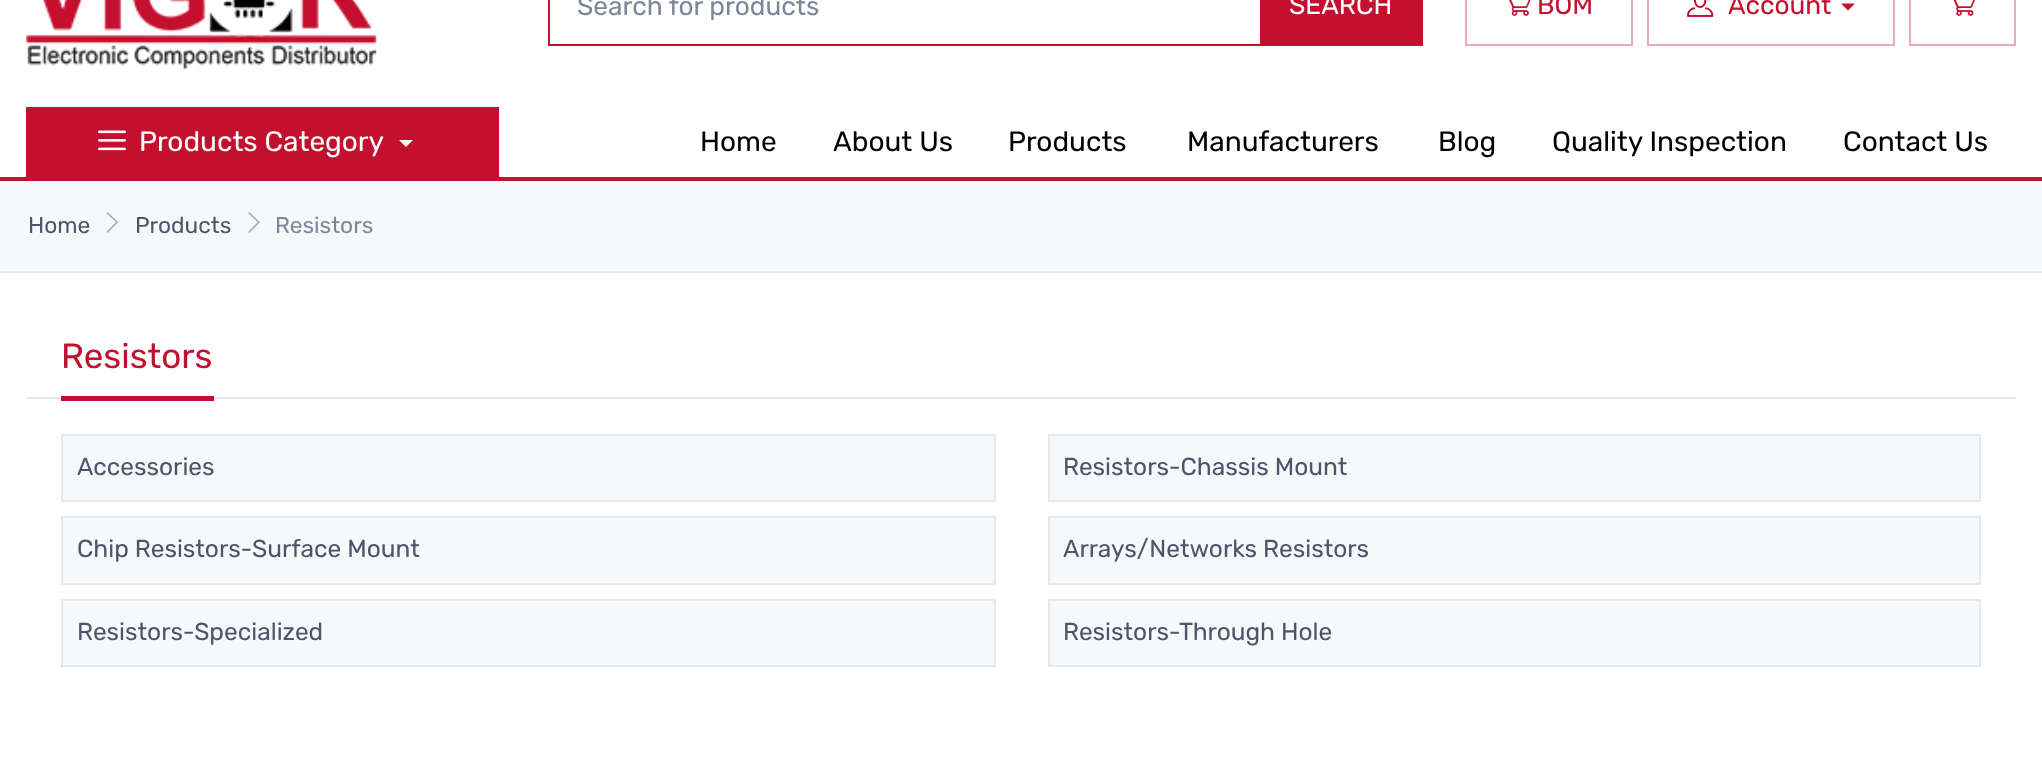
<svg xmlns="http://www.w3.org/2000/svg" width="2042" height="778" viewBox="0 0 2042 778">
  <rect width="100%" height="100%" fill="#ffffff"/>
  <image x="26" y="0" width="351" height="69" href="img1.png"/>
  <rect x="549" y="-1" width="873" height="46" fill="none" stroke="#c3102f" stroke-width="2"/>
  <text x="577" y="15" font-family="Rubik" font-size="26.25" fill="#7d879c">Search for products</text>
  <rect x="1260" y="0" width="163" height="46" fill="#c3102f"/>
  <text x="1289" y="14" font-family="Rubik" font-size="26.25" fill="#ffffff">SEARCH</text>
  <rect x="1466" y="-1" width="166" height="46" fill="none" stroke="#eaabb6" stroke-width="2"/>
  <image x="1509" y="0" width="22" height="16" href="img2.png"/>
  <text x="1537" y="14" font-family="Rubik" font-size="26.25" fill="#c3102f">BOM</text>
  <rect x="1648" y="-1" width="246" height="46" fill="none" stroke="#eaabb6" stroke-width="2"/>
  <image x="1687" y="0" width="27" height="17" href="img3.png"/>
  <text x="1728" y="14" font-family="Rubik" font-size="26.25" fill="#c3102f">Account</text>
  <path d="M1841 3.5H1855L1848 10.5Z" fill="#c3102f"/>
  <rect x="1910" y="-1" width="105" height="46" fill="none" stroke="#eaabb6" stroke-width="2"/>
  <image x="1953" y="0" width="22" height="16" href="img4.png"/>
  <rect x="0" y="177" width="2042" height="4" fill="#c3102f"/>
  <rect x="26" y="107" width="473" height="70" fill="#c3102f"/>
  <image x="98" y="130" width="28" height="21" href="img5.png"/>
  <text x="139" y="151" font-family="Rubik" font-size="28" fill="#ffffff">Products Category</text>
  <path d="M399 140H413L406 147Z" fill="#ffffff"/>
  <text x="700" y="151" font-family="Rubik" font-size="28" fill="#000000">Home</text>
  <text x="833" y="151" font-family="Rubik" font-size="28" fill="#000000">About Us</text>
  <text x="1008" y="151" font-family="Rubik" font-size="28" fill="#000000">Products</text>
  <text x="1187" y="151" font-family="Rubik" font-size="28" fill="#000000">Manufacturers</text>
  <text x="1438" y="151" font-family="Rubik" font-size="28" fill="#000000">Blog</text>
  <text x="1552" y="151" font-family="Rubik" font-size="28" fill="#000000">Quality Inspection</text>
  <text x="1843" y="151" font-family="Rubik" font-size="28" fill="#000000">Contact Us</text>
  <rect x="0" y="181" width="2042" height="90" fill="#f6f9fc"/>
  <rect x="0" y="271" width="2042" height="2" fill="#e3e9ef"/>
  <text x="28" y="233" font-family="Rubik" font-size="22.75" fill="#4b566b">Home</text>
  <image x="106" y="212" width="12" height="21" href="img6.png"/>
  <text x="135" y="233" font-family="Rubik" font-size="22.75" fill="#4b566b">Products</text>
  <image x="248" y="212" width="12" height="21" href="img7.png"/>
  <text x="275" y="233" font-family="Rubik" font-size="22.75" fill="#7d879c">Resistors</text>
  <rect x="26" y="397" width="1990" height="2" fill="#e3e9ef"/>
  <text x="61" y="368" font-family="Rubik" font-size="35" fill="#c3102f">Resistors</text>
  <rect x="61" y="396" width="153" height="5" fill="#c3102f"/>
  <rect x="62" y="435" width="933" height="66" fill="#f6f9fc" stroke="#e3e9ef" stroke-width="2"/>
  <text x="77" y="475" font-family="Rubik" font-size="24.5" fill="#4b566b">Accessories</text>
  <rect x="1049" y="435" width="931" height="66" fill="#f6f9fc" stroke="#e3e9ef" stroke-width="2"/>
  <text x="1063" y="475" font-family="Rubik" font-size="24.5" fill="#4b566b">Resistors-Chassis Mount</text>
  <rect x="62" y="517" width="933" height="67" fill="#f6f9fc" stroke="#e3e9ef" stroke-width="2"/>
  <text x="77" y="557" font-family="Rubik" font-size="24.5" fill="#4b566b">Chip Resistors-Surface Mount</text>
  <rect x="1049" y="517" width="931" height="67" fill="#f6f9fc" stroke="#e3e9ef" stroke-width="2"/>
  <text x="1063" y="557" font-family="Rubik" font-size="24.5" fill="#4b566b">Arrays/Networks Resistors</text>
  <rect x="62" y="600" width="933" height="66" fill="#f6f9fc" stroke="#e3e9ef" stroke-width="2"/>
  <text x="77" y="640" font-family="Rubik" font-size="24.5" fill="#4b566b">Resistors-Specialized</text>
  <rect x="1049" y="600" width="931" height="66" fill="#f6f9fc" stroke="#e3e9ef" stroke-width="2"/>
  <text x="1063" y="640" font-family="Rubik" font-size="24.5" fill="#4b566b">Resistors-Through Hole</text>
</svg>
